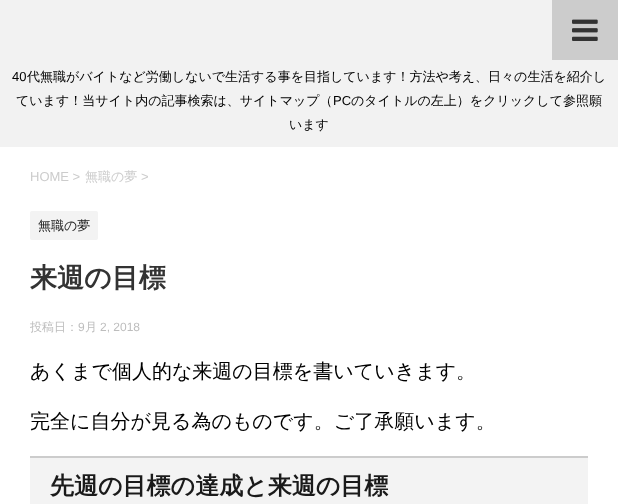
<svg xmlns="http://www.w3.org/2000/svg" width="618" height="504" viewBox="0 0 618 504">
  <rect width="100%" height="100%" fill="#f2f2f2"/>
  <rect x="552" y="0" width="66" height="60" fill="#cccccc"/>
  <image x="572" y="19" width="26" height="22" href="img1.png"/>
  <text x="12" y="81" font-family="Liberation Sans" font-size="13" fill="#000000">40</text>
  <text x="27" y="81" font-family="WenQuanYi Zen Hei" font-size="13" font-weight="500" fill="#000000">代無職がバイトなど労働しないで生活する事を目指しています！方法や考え、日々の生活を紹介し</text>
  <text x="16" y="105" font-family="WenQuanYi Zen Hei" font-size="13" font-weight="500" fill="#000000">ています！当サイト内の記事検索は、サイトマップ（</text>
  <text x="333" y="105" font-family="Liberation Sans" font-size="13" fill="#000000">PC</text>
  <text x="351" y="105" font-family="WenQuanYi Zen Hei" font-size="13" font-weight="500" fill="#000000">のタイトルの左上）をクリックして参照願</text>
  <text x="289" y="129" font-family="WenQuanYi Zen Hei" font-size="13" font-weight="500" fill="#000000">います</text>
  <rect x="0" y="147" width="618" height="357" fill="#ffffff"/>
  <text x="30" y="181" font-family="Liberation Sans" font-size="13" fill="#cccccc">HOME &gt;</text>
  <text x="85" y="181" font-family="WenQuanYi Zen Hei" font-size="13" font-weight="500" fill="#cccccc">無職の夢</text>
  <text x="141" y="181" font-family="Liberation Sans" font-size="13" fill="#cccccc">&gt;</text>
  <rect x="30" y="211" width="68" height="29" rx="2" fill="#f3f3f3"/>
  <text x="38" y="230" font-family="WenQuanYi Zen Hei" font-size="13" font-weight="500" fill="#1a1a1a">無職の夢</text>
  <text x="30" y="287" font-family="WenQuanYi Zen Hei" font-size="27" font-weight="bold" fill="#333333">来週の目標</text>
  <text x="30" y="331" font-family="WenQuanYi Zen Hei" font-size="12" font-weight="500" fill="#bdbdbd">投稿日：</text>
  <text x="78" y="331" font-family="Liberation Sans" font-size="12" fill="#bdbdbd">9</text>
  <text x="85" y="331" font-family="WenQuanYi Zen Hei" font-size="12" font-weight="500" fill="#bdbdbd">月</text>
  <text x="100" y="331" font-family="Liberation Sans" font-size="12" fill="#bdbdbd">2, 2018</text>
  <text x="30" y="378" font-family="WenQuanYi Zen Hei" font-size="20" font-weight="500" fill="#000000">あくまで個人的な来週の目標を書いていきます。</text>
  <text x="30" y="428" font-family="WenQuanYi Zen Hei" font-size="20" font-weight="500" fill="#000000">完全に自分が見る為のものです。ご了承願います。</text>
  <rect x="30" y="458" width="558" height="46" fill="#f3f3f3"/>
  <rect x="30" y="456" width="558" height="2" fill="#cccccc"/>
  <text x="50" y="494" font-family="WenQuanYi Zen Hei" font-size="24" font-weight="bold" fill="#1a1a1a">先週の目標の達成と来週の目標</text>
</svg>
